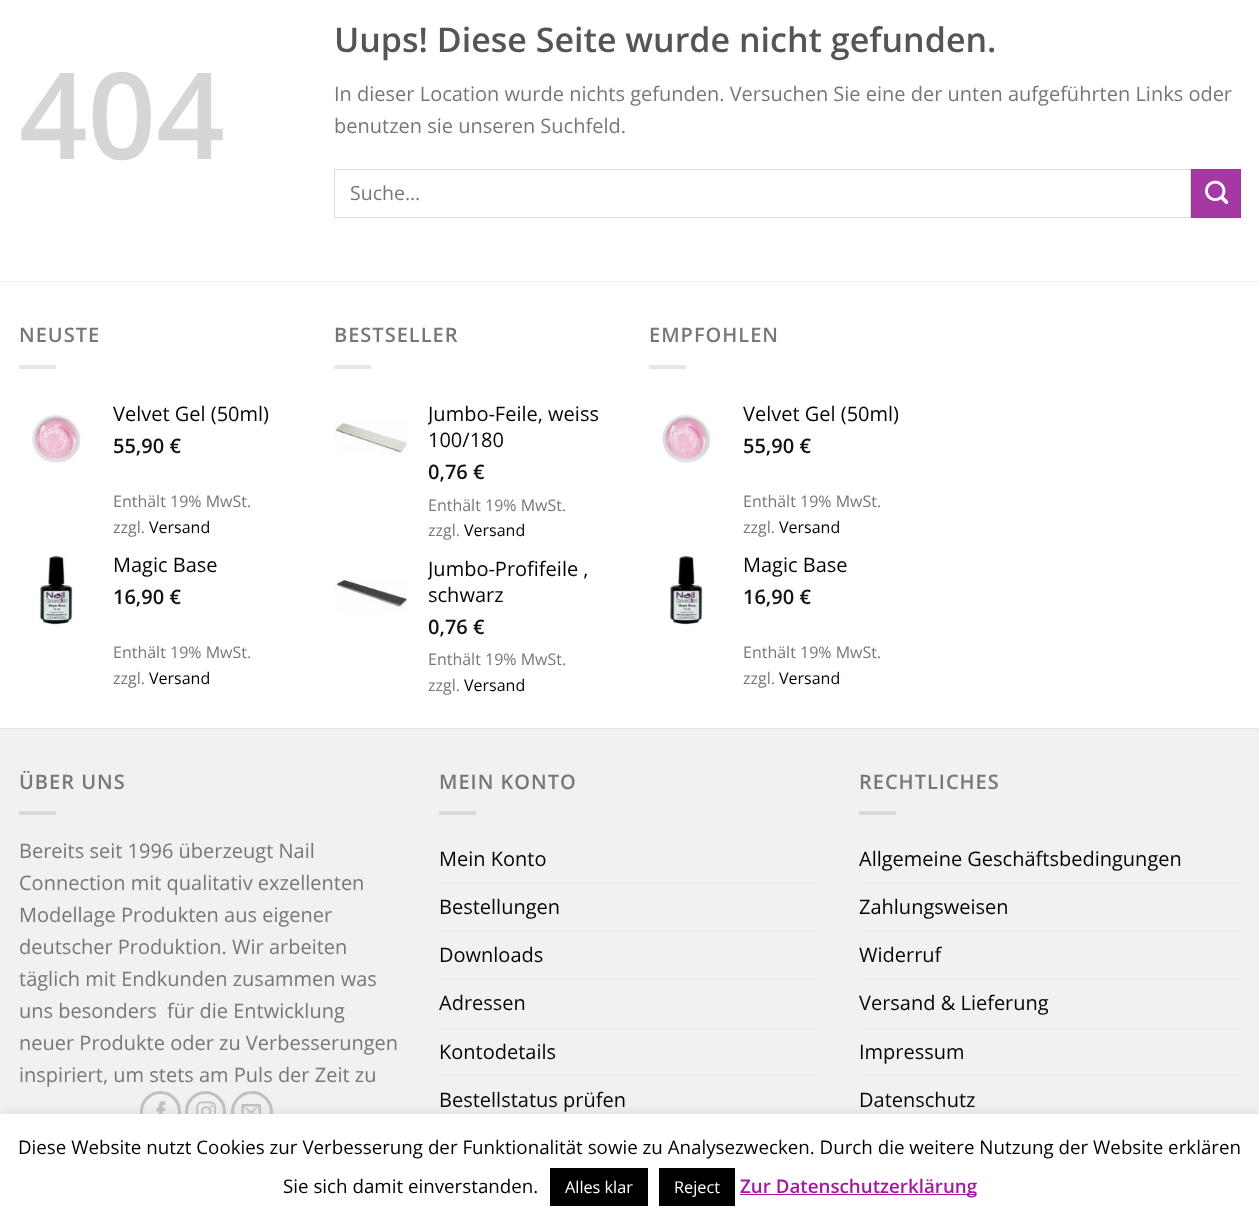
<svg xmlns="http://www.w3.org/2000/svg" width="1259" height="1221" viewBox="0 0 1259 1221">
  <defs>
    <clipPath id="clip1"><rect x="428" y="401" width="183" height="52"/></clipPath>
    <clipPath id="clip2"><rect x="428" y="556" width="183" height="52"/></clipPath>
    <filter id="blur1" x="-50%" y="-200%" width="200%" height="500%"><feGaussianBlur stdDeviation="6"/></filter>
  </defs>
  <rect width="100%" height="100%" fill="#ffffff"/>
  <text x="19" y="159" font-family="Open Sans" font-size="120" font-weight="600" fill="#d6d6d6">404</text>
  <text x="334" y="52" font-family="Open Sans" font-size="34" font-weight="600" fill="#555555">Uups! Diese Seite wurde nicht gefunden.</text>
  <text x="334" y="101" font-family="Open Sans" font-size="20" fill="#777777">In dieser Location wurde nichts gefunden. Versuchen Sie eine der unten aufgeführten Links oder</text>
  <text x="334" y="133" font-family="Open Sans" font-size="20" fill="#777777">benutzen sie unseren Suchfeld.</text>
  <rect x="334.5" y="169.5" width="856" height="48" fill="none" stroke="#dddddd"/>
  <text x="350" y="200" font-family="Open Sans" font-size="19.5" fill="#777777">Suche…</text>
  <rect x="1191.5" y="169.5" width="49" height="48" fill="#a538a2" stroke="#9d359a"/>
  <image x="1205" y="180" width="24" height="24" href="img1.png"/>
  <rect x="0" y="281" width="1259" height="1" fill="#f2f2f2"/>
  <text x="19" y="342" font-family="Open Sans" font-size="20" font-weight="600" letter-spacing="1" fill="#777777">NEUSTE</text>
  <rect x="19" y="365" width="37" height="4" fill="#e6e6e6"/>
  <image x="31" y="414" width="50" height="49" href="img2.png"/>
  <text x="113" y="421" font-family="Open Sans" font-size="20" fill="#0a0000">Velvet Gel (50ml)</text>
  <text x="113" y="453" font-family="Open Sans" font-size="20" font-weight="600" fill="#111111">55,90 €</text>
  <text x="113" y="507" font-family="Open Sans" font-size="16" fill="#777777">Enthält 19% MwSt.</text>
  <text x="113" y="533" font-family="Open Sans" font-size="16" fill="#777777">zzgl.</text>
  <text x="149" y="533" font-family="Open Sans" font-size="16" fill="#0a0000">Versand</text>
  <image x="38" y="552" width="35" height="73" href="img3.png"/>
  <text x="113" y="572" font-family="Open Sans" font-size="20" fill="#0a0000">Magic Base</text>
  <text x="113" y="604" font-family="Open Sans" font-size="20" font-weight="600" fill="#111111">16,90 €</text>
  <text x="113" y="658" font-family="Open Sans" font-size="16" fill="#777777">Enthält 19% MwSt.</text>
  <text x="113" y="684" font-family="Open Sans" font-size="16" fill="#777777">zzgl.</text>
  <text x="149" y="684" font-family="Open Sans" font-size="16" fill="#0a0000">Versand</text>
  <text x="334" y="342" font-family="Open Sans" font-size="20" font-weight="600" letter-spacing="1" fill="#777777">BESTSELLER</text>
  <rect x="334" y="365" width="37" height="4" fill="#e6e6e6"/>
  <g clip-path="url(#clip1)">
    <text x="428" y="421" font-family="Open Sans" font-size="20" fill="#0a0000">Jumbo-Feile, weiss</text>
  </g>
  <image x="334" y="419" width="74" height="36" href="img4.png"/>
  <text x="428" y="447" font-family="Open Sans" font-size="20" fill="#0a0000">100/180</text>
  <text x="428" y="479" font-family="Open Sans" font-size="20" font-weight="600" fill="#111111">0,76 €</text>
  <text x="428" y="511" font-family="Open Sans" font-size="16" fill="#777777">Enthält 19% MwSt.</text>
  <text x="428" y="536" font-family="Open Sans" font-size="16" fill="#777777">zzgl.</text>
  <text x="464" y="536" font-family="Open Sans" font-size="16" fill="#0a0000">Versand</text>
  <g clip-path="url(#clip2)">
    <text x="428" y="576" font-family="Open Sans" font-size="20" fill="#0a0000">Jumbo-Profifeile ,</text>
  </g>
  <image x="334" y="580" width="75" height="33" href="img5.png"/>
  <text x="428" y="602" font-family="Open Sans" font-size="20" fill="#0a0000">schwarz</text>
  <text x="428" y="634" font-family="Open Sans" font-size="20" font-weight="600" fill="#111111">0,76 €</text>
  <text x="428" y="665" font-family="Open Sans" font-size="16" fill="#777777">Enthält 19% MwSt.</text>
  <text x="428" y="691" font-family="Open Sans" font-size="16" fill="#777777">zzgl.</text>
  <text x="464" y="691" font-family="Open Sans" font-size="16" fill="#0a0000">Versand</text>
  <text x="649" y="342" font-family="Open Sans" font-size="20" font-weight="600" letter-spacing="1" fill="#777777">EMPFOHLEN</text>
  <rect x="649" y="365" width="37" height="4" fill="#e6e6e6"/>
  <image x="661" y="414" width="50" height="49" href="img2.png"/>
  <text x="743" y="421" font-family="Open Sans" font-size="20" fill="#0a0000">Velvet Gel (50ml)</text>
  <text x="743" y="453" font-family="Open Sans" font-size="20" font-weight="600" fill="#111111">55,90 €</text>
  <text x="743" y="507" font-family="Open Sans" font-size="16" fill="#777777">Enthält 19% MwSt.</text>
  <text x="743" y="533" font-family="Open Sans" font-size="16" fill="#777777">zzgl.</text>
  <text x="779" y="533" font-family="Open Sans" font-size="16" fill="#0a0000">Versand</text>
  <image x="668" y="552" width="35" height="73" href="img3.png"/>
  <text x="743" y="572" font-family="Open Sans" font-size="20" fill="#0a0000">Magic Base</text>
  <text x="743" y="604" font-family="Open Sans" font-size="20" font-weight="600" fill="#111111">16,90 €</text>
  <text x="743" y="658" font-family="Open Sans" font-size="16" fill="#777777">Enthält 19% MwSt.</text>
  <text x="743" y="684" font-family="Open Sans" font-size="16" fill="#777777">zzgl.</text>
  <text x="779" y="684" font-family="Open Sans" font-size="16" fill="#0a0000">Versand</text>
  <rect x="0" y="729" width="1259" height="385" fill="#f1f1f1"/>
  <rect x="0" y="728" width="1259" height="1" fill="#e5e5e5"/>
  <text x="19" y="789" font-family="Open Sans" font-size="20" font-weight="600" letter-spacing="1" fill="#777777">ÜBER UNS</text>
  <rect x="19" y="811" width="37" height="4" fill="#d9d9d9"/>
  <text x="19" y="858" font-family="Open Sans" font-size="20" fill="#777777">Bereits seit 1996 überzeugt Nail</text>
  <text x="19" y="890" font-family="Open Sans" font-size="20" fill="#777777">Connection mit qualitativ exzellenten</text>
  <text x="19" y="922" font-family="Open Sans" font-size="20" fill="#777777">Modellage Produkten aus eigener</text>
  <text x="19" y="954" font-family="Open Sans" font-size="20" fill="#777777">deutscher Produktion. Wir arbeiten</text>
  <text x="19" y="986" font-family="Open Sans" font-size="20" fill="#777777">täglich mit Endkunden zusammen was</text>
  <text x="19" y="1018" font-family="Open Sans" font-size="20" fill="#777777" xml:space="preserve">uns besonders  für die Entwicklung</text>
  <text x="19" y="1050" font-family="Open Sans" font-size="20" fill="#777777">neuer Produkte oder zu Verbesserungen</text>
  <text x="19" y="1082" font-family="Open Sans" font-size="20" fill="#777777">inspiriert, um stets am Puls der Zeit zu</text>
  <rect x="141.5" y="1092.5" width="38" height="39" rx="19" fill="none" stroke="#c0c0c0" stroke-width="3"/>
  <image x="156" y="1101" width="10" height="13" href="img6.png"/>
  <rect x="186.5" y="1092.5" width="38" height="39" rx="19" fill="none" stroke="#c0c0c0" stroke-width="3"/>
  <image x="196" y="1101" width="20" height="13" href="img7.png"/>
  <circle cx="252" cy="1112" r="19.5" fill="none" stroke="#c0c0c0" stroke-width="3"/>
  <image x="241" y="1104" width="20" height="10" href="img8.png"/>
  <text x="439" y="789" font-family="Open Sans" font-size="20" font-weight="600" letter-spacing="1" fill="#777777">MEIN KONTO</text>
  <rect x="439" y="811" width="37" height="4" fill="#d9d9d9"/>
  <text x="439" y="866" font-family="Open Sans" font-size="20" fill="#0a0000">Mein Konto</text>
  <rect x="439" y="883" width="382" height="1" fill="#ececec"/>
  <text x="439" y="914" font-family="Open Sans" font-size="20" fill="#0a0000">Bestellungen</text>
  <rect x="439" y="931" width="382" height="1" fill="#ececec"/>
  <text x="439" y="962" font-family="Open Sans" font-size="20" fill="#0a0000">Downloads</text>
  <rect x="439" y="979" width="382" height="1" fill="#ececec"/>
  <text x="439" y="1010" font-family="Open Sans" font-size="20" fill="#0a0000">Adressen</text>
  <rect x="439" y="1028" width="382" height="1" fill="#ececec"/>
  <text x="439" y="1059" font-family="Open Sans" font-size="20" fill="#0a0000">Kontodetails</text>
  <rect x="439" y="1075" width="382" height="1" fill="#ececec"/>
  <text x="439" y="1107" font-family="Open Sans" font-size="20" fill="#0a0000">Bestellstatus prüfen</text>
  <text x="859" y="789" font-family="Open Sans" font-size="20" font-weight="600" letter-spacing="1" fill="#777777">RECHTLICHES</text>
  <rect x="859" y="811" width="37" height="4" fill="#d9d9d9"/>
  <text x="859" y="866" font-family="Open Sans" font-size="20" fill="#0a0000">Allgemeine Geschäftsbedingungen</text>
  <rect x="859" y="883" width="382" height="1" fill="#ececec"/>
  <text x="859" y="914" font-family="Open Sans" font-size="20" fill="#0a0000">Zahlungsweisen</text>
  <rect x="859" y="931" width="382" height="1" fill="#ececec"/>
  <text x="859" y="962" font-family="Open Sans" font-size="20" fill="#0a0000">Widerruf</text>
  <rect x="859" y="979" width="382" height="1" fill="#ececec"/>
  <text x="859" y="1010" font-family="Open Sans" font-size="20" fill="#0a0000">Versand &amp; Lieferung</text>
  <rect x="859" y="1028" width="382" height="1" fill="#ececec"/>
  <text x="859" y="1059" font-family="Open Sans" font-size="20" fill="#0a0000">Impressum</text>
  <rect x="859" y="1075" width="382" height="1" fill="#ececec"/>
  <text x="859" y="1107" font-family="Open Sans" font-size="20" fill="#0a0000">Datenschutz</text>
  <rect x="0" y="1113" width="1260" height="107" fill="#acabab" fill-opacity="0.3" filter="url(#blur1)"/>
  <rect x="0" y="1114" width="1259" height="107" fill="#ffffff"/>
  <text x="18" y="1154" font-family="Open Sans" font-size="18.75" fill="#000000">Diese Website nutzt Cookies zur Verbesserung der Funktionalität sowie zu Analysezwecken. Durch die weitere Nutzung der Website erklären</text>
  <text x="283" y="1193" font-family="Open Sans" font-size="18.75" fill="#000000">Sie sich damit einverstanden.</text>
  <rect x="550" y="1168" width="98" height="38" fill="#000000"/>
  <text x="565" y="1193" font-family="Open Sans" font-size="16.25" fill="#ffffff">Alles klar</text>
  <rect x="659" y="1168" width="76" height="38" fill="#000000"/>
  <text x="674" y="1193" font-family="Open Sans" font-size="16.25" fill="#ffffff">Reject</text>
  <rect x="740" y="1194" width="236" height="1" fill="#a518a1"/>
  <text x="740" y="1193" font-family="Open Sans" font-size="18.75" font-weight="600" fill="#a518a1">Zur Datenschutzerklärung</text>
</svg>
